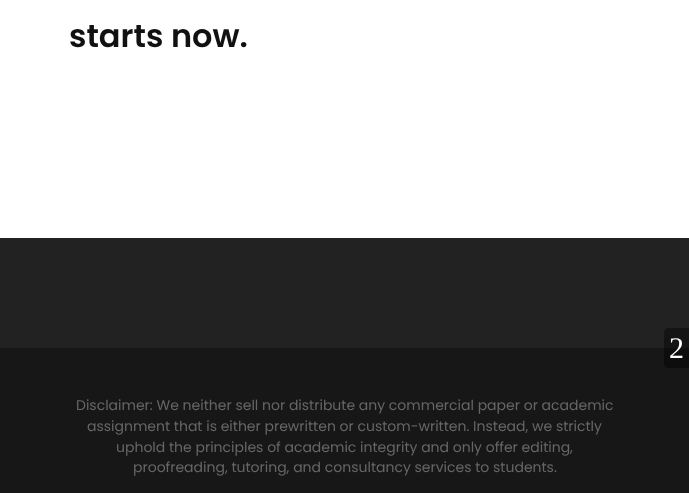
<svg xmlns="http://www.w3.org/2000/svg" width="689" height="493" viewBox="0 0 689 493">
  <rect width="100%" height="100%" fill="#ffffff"/>
  <text x="69" y="47" font-family="Poppins" font-size="32" font-weight="600" fill="#111111">starts now.</text>
  <rect x="0" y="238" width="689" height="110" fill="#222222"/>
  <rect x="0" y="348" width="689" height="145" fill="#171717"/>
  <path d="M669 328H689V368H669C666 368 664 366 664 363V333C664 330 666 328 669 328Z" fill="#000000" fill-opacity="0.4"/>
  <text x="669" y="358" font-family="Liberation Serif" font-size="30" fill="#ffffff">2</text>
  <text x="76" y="410" font-family="Poppins" font-size="14" fill="#666666">Disclaimer: We neither sell nor distribute any commercial paper or academic</text>
  <text x="87" y="431" font-family="Poppins" font-size="14" fill="#666666">assignment that is either prewritten or custom-written. Instead, we strictly</text>
  <text x="116" y="452" font-family="Poppins" font-size="14" fill="#666666">uphold the principles of academic integrity and only offer editing,</text>
  <text x="133" y="472" font-family="Poppins" font-size="14" fill="#666666">proofreading, tutoring, and consultancy services to students.</text>
</svg>
